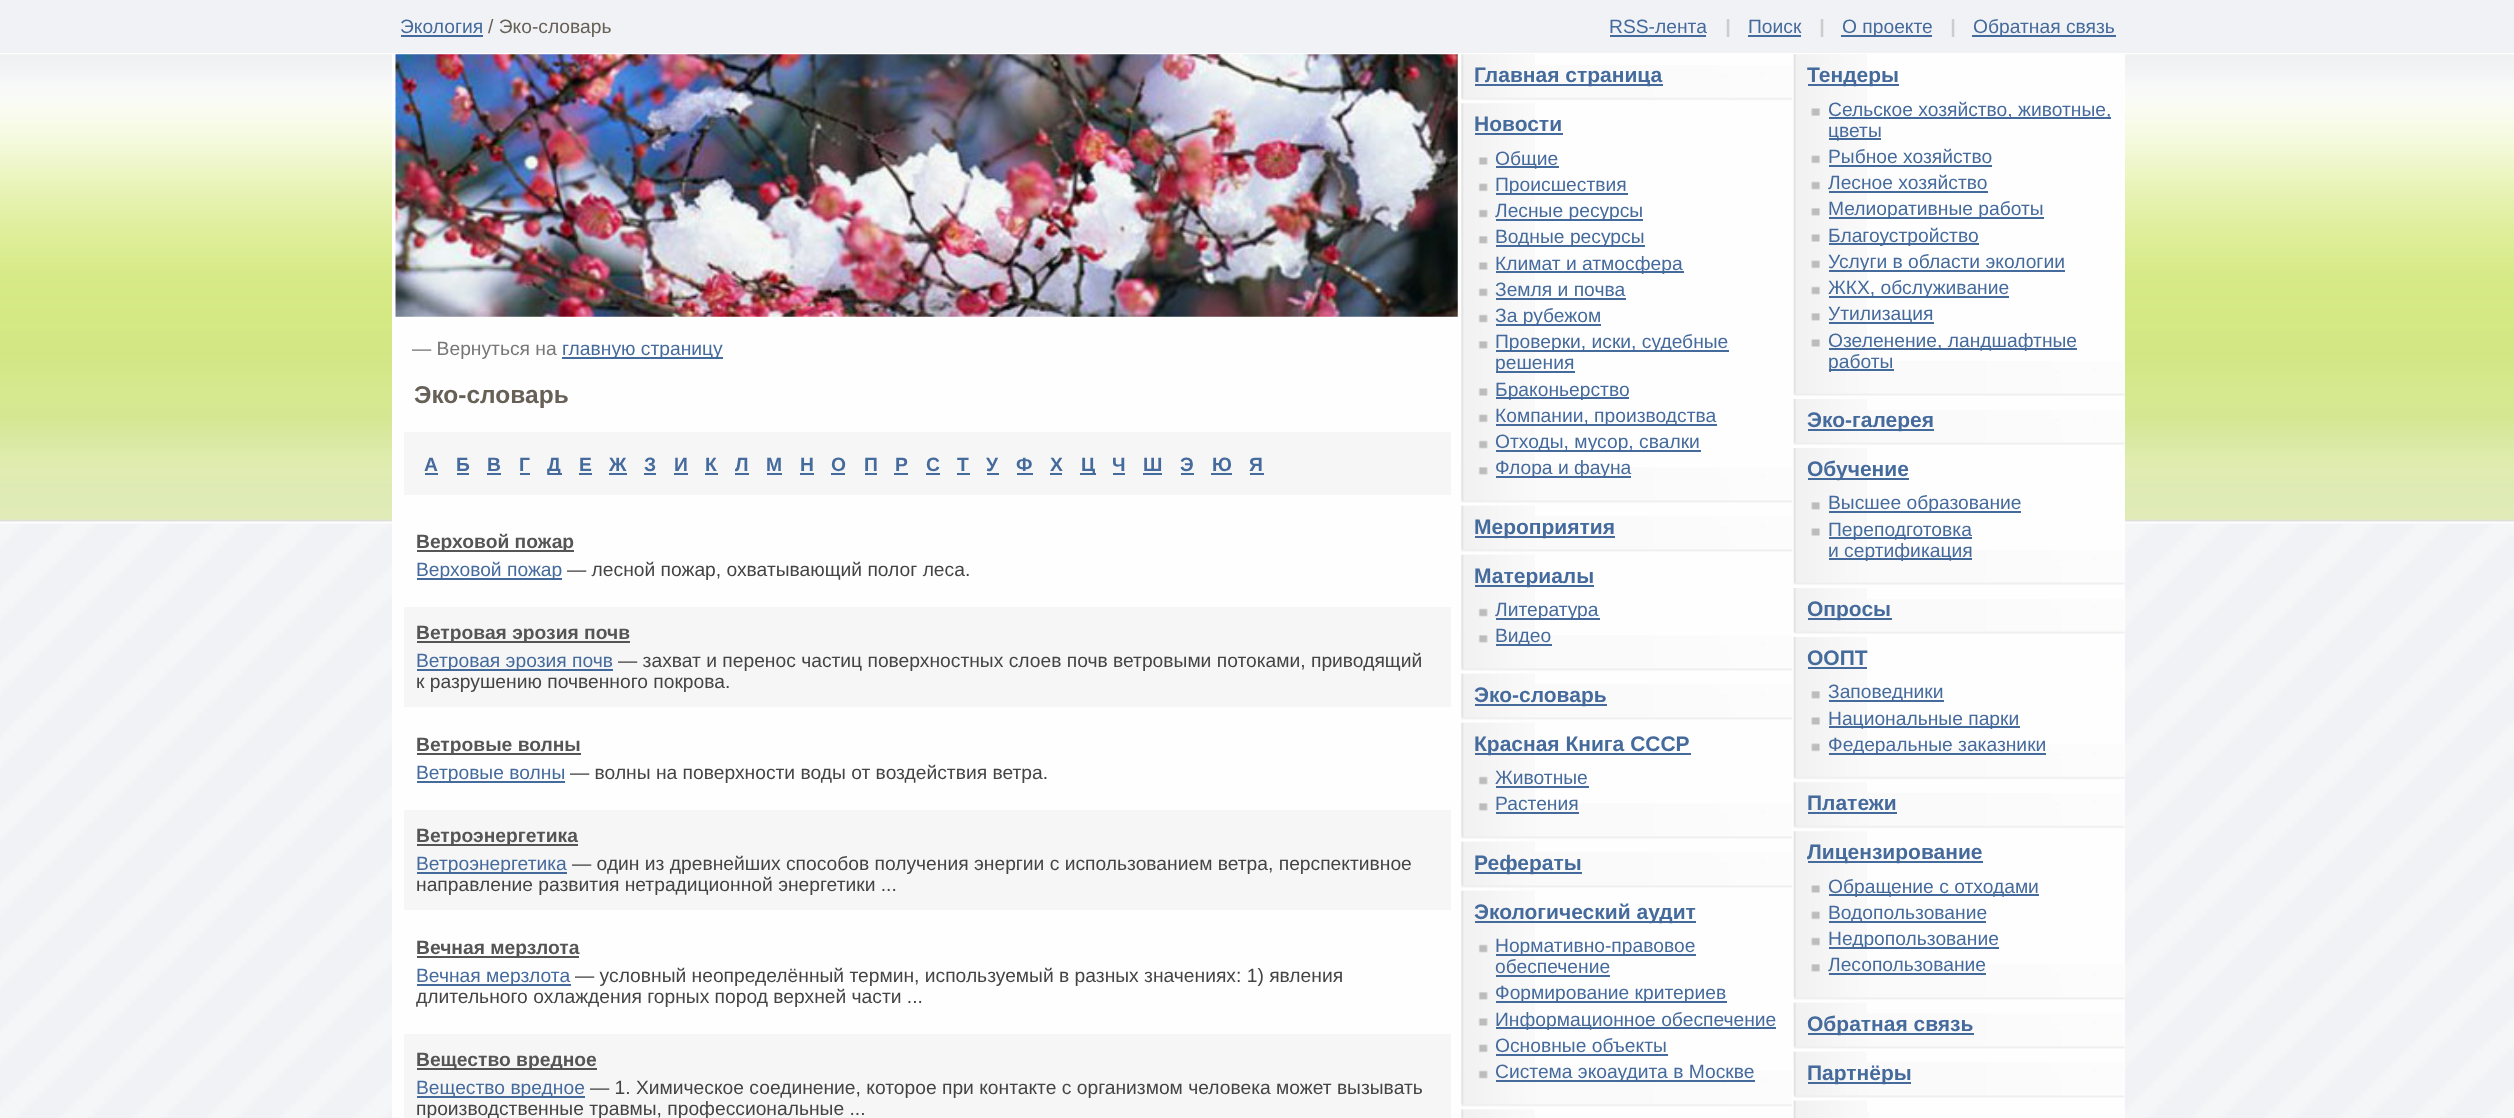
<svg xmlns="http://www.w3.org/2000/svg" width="2514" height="1118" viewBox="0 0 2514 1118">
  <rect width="100%" height="100%" fill="#ffffff"/>
  <image x="0" y="524" width="2514" height="594" href="img1.png"/>
  <rect x="0" y="0" width="2514" height="53" fill="#f1f2f5"/>
  <text x="400" y="33" font-family="Liberation Sans" font-size="19.25" fill="#456a9c">Экология</text>
  <rect x="401" y="35" width="82" height="2" fill="#456a9c"/>
  <text x="488" y="33" font-family="Liberation Sans" font-size="19.25" fill="#666057">/ Эко-словарь</text>
  <text x="1609" y="33" font-family="Liberation Sans" font-size="19.25" fill="#456a9c">RSS-лента</text>
  <rect x="1610" y="35" width="96" height="2" fill="#456a9c"/>
  <text x="1725" y="33" font-family="Liberation Sans" font-size="19.25" font-weight="bold" font-style="italic" fill="#cccccc">|</text>
  <text x="1748" y="33" font-family="Liberation Sans" font-size="19.25" fill="#456a9c">Поиск</text>
  <rect x="1748" y="35" width="53" height="2" fill="#456a9c"/>
  <text x="1819" y="33" font-family="Liberation Sans" font-size="19.25" font-weight="bold" font-style="italic" fill="#cccccc">|</text>
  <rect x="1841" y="35" width="91" height="2" fill="#456a9c"/>
  <text x="1842" y="33" font-family="Liberation Sans" font-size="19.25" fill="#456a9c">О проекте</text>
  <text x="1950" y="33" font-family="Liberation Sans" font-size="19.25" font-weight="bold" font-style="italic" fill="#cccccc">|</text>
  <rect x="1972" y="35" width="144" height="2" fill="#456a9c"/>
  <text x="1973" y="33" font-family="Liberation Sans" font-size="19.25" fill="#456a9c">Обратная связь</text>
  <image x="0" y="54" width="2514" height="470" href="img2.png"/>
  <rect x="392" y="54" width="1733" height="1064" fill="#fefefe"/>
  <image x="395" y="54" width="1063" height="263" href="img3.png"/>
  <text x="412" y="355" font-family="Liberation Sans" font-size="19.25" fill="#777777">— Вернуться на</text>
  <rect x="562" y="357" width="161" height="2" fill="#456a9c"/>
  <text x="562" y="355" font-family="Liberation Sans" font-size="19.25" fill="#456a9c">главную страницу</text>
  <text x="414" y="403" font-family="Liberation Sans" font-size="24.5" font-weight="bold" fill="#666057">Эко-словарь</text>
  <rect x="404" y="432" width="1047" height="63" fill="#f6f6f6"/>
  <text x="424" y="471" font-family="Liberation Sans" font-size="19.25" font-weight="bold" fill="#456a9c">А</text>
  <rect x="425" y="473" width="13" height="2" fill="#456a9c"/>
  <text x="456" y="471" font-family="Liberation Sans" font-size="19.25" font-weight="bold" fill="#456a9c">Б</text>
  <rect x="457" y="473" width="12" height="2" fill="#456a9c"/>
  <text x="487" y="471" font-family="Liberation Sans" font-size="19.25" font-weight="bold" fill="#456a9c">В</text>
  <rect x="487" y="473" width="14" height="2" fill="#456a9c"/>
  <text x="519" y="471" font-family="Liberation Sans" font-size="19.25" font-weight="bold" fill="#456a9c">Г</text>
  <rect x="520" y="473" width="10" height="2" fill="#456a9c"/>
  <rect x="548" y="473" width="14" height="2" fill="#456a9c"/>
  <text x="547" y="471" font-family="Liberation Sans" font-size="19.25" font-weight="bold" fill="#456a9c">Д</text>
  <text x="579" y="471" font-family="Liberation Sans" font-size="19.25" font-weight="bold" fill="#456a9c">Е</text>
  <rect x="579" y="473" width="13" height="2" fill="#456a9c"/>
  <text x="609" y="471" font-family="Liberation Sans" font-size="19.25" font-weight="bold" fill="#456a9c">Ж</text>
  <rect x="609" y="473" width="18" height="2" fill="#456a9c"/>
  <text x="644" y="471" font-family="Liberation Sans" font-size="19.25" font-weight="bold" fill="#456a9c">З</text>
  <rect x="644" y="473" width="12" height="2" fill="#456a9c"/>
  <text x="674" y="471" font-family="Liberation Sans" font-size="19.25" font-weight="bold" fill="#456a9c">И</text>
  <rect x="674" y="473" width="14" height="2" fill="#456a9c"/>
  <text x="705" y="471" font-family="Liberation Sans" font-size="19.25" font-weight="bold" fill="#456a9c">К</text>
  <rect x="705" y="473" width="13" height="2" fill="#456a9c"/>
  <text x="735" y="471" font-family="Liberation Sans" font-size="19.25" font-weight="bold" fill="#456a9c">Л</text>
  <rect x="735" y="473" width="14" height="2" fill="#456a9c"/>
  <text x="766" y="471" font-family="Liberation Sans" font-size="19.25" font-weight="bold" fill="#456a9c">М</text>
  <rect x="767" y="473" width="15" height="2" fill="#456a9c"/>
  <text x="800" y="471" font-family="Liberation Sans" font-size="19.25" font-weight="bold" fill="#456a9c">Н</text>
  <rect x="800" y="473" width="14" height="2" fill="#456a9c"/>
  <text x="831" y="471" font-family="Liberation Sans" font-size="19.25" font-weight="bold" fill="#456a9c">О</text>
  <rect x="831" y="473" width="14" height="2" fill="#456a9c"/>
  <text x="864" y="471" font-family="Liberation Sans" font-size="19.25" font-weight="bold" fill="#456a9c">П</text>
  <rect x="865" y="473" width="12" height="2" fill="#456a9c"/>
  <text x="895" y="471" font-family="Liberation Sans" font-size="19.25" font-weight="bold" fill="#456a9c">Р</text>
  <rect x="894" y="473" width="14" height="2" fill="#456a9c"/>
  <text x="926" y="471" font-family="Liberation Sans" font-size="19.25" font-weight="bold" fill="#456a9c">С</text>
  <rect x="926" y="473" width="14" height="2" fill="#456a9c"/>
  <text x="957" y="471" font-family="Liberation Sans" font-size="19.25" font-weight="bold" fill="#456a9c">Т</text>
  <rect x="957" y="473" width="13" height="2" fill="#456a9c"/>
  <text x="986" y="471" font-family="Liberation Sans" font-size="19.25" font-weight="bold" fill="#456a9c">У</text>
  <rect x="987" y="473" width="12" height="2" fill="#456a9c"/>
  <text x="1016" y="471" font-family="Liberation Sans" font-size="19.25" font-weight="bold" fill="#456a9c">Ф</text>
  <rect x="1017" y="473" width="16" height="2" fill="#456a9c"/>
  <text x="1050" y="471" font-family="Liberation Sans" font-size="19.25" font-weight="bold" fill="#456a9c">Х</text>
  <rect x="1050" y="473" width="12" height="2" fill="#456a9c"/>
  <rect x="1080" y="473" width="16" height="2" fill="#456a9c"/>
  <text x="1081" y="471" font-family="Liberation Sans" font-size="19.25" font-weight="bold" fill="#456a9c">Ц</text>
  <text x="1112" y="471" font-family="Liberation Sans" font-size="19.25" font-weight="bold" fill="#456a9c">Ч</text>
  <rect x="1113" y="473" width="12" height="2" fill="#456a9c"/>
  <text x="1143" y="471" font-family="Liberation Sans" font-size="19.25" font-weight="bold" fill="#456a9c">Ш</text>
  <rect x="1143" y="473" width="19" height="2" fill="#456a9c"/>
  <text x="1180" y="471" font-family="Liberation Sans" font-size="19.25" font-weight="bold" fill="#456a9c">Э</text>
  <rect x="1181" y="473" width="13" height="2" fill="#456a9c"/>
  <text x="1212" y="471" font-family="Liberation Sans" font-size="19.25" font-weight="bold" fill="#456a9c">Ю</text>
  <rect x="1211" y="473" width="21" height="2" fill="#456a9c"/>
  <text x="1249" y="471" font-family="Liberation Sans" font-size="19.25" font-weight="bold" fill="#456a9c">Я</text>
  <rect x="1250" y="473" width="14" height="2" fill="#456a9c"/>
  <rect x="417" y="550" width="157" height="2" fill="#555555"/>
  <text x="416" y="548" font-family="Liberation Sans" font-size="19.25" font-weight="bold" fill="#555555">Верховой пожар</text>
  <rect x="417" y="578" width="145" height="2" fill="#456a9c"/>
  <text x="416" y="576" font-family="Liberation Sans" font-size="19.25" fill="#456a9c">Верховой пожар</text>
  <text x="567" y="576" font-family="Liberation Sans" font-size="19.25" fill="#444444">— лесной пожар, охватывающий полог леса.</text>
  <rect x="404" y="607" width="1047" height="100" fill="#f6f6f6"/>
  <rect x="417" y="641" width="213" height="2" fill="#555555"/>
  <text x="416" y="639" font-family="Liberation Sans" font-size="19.25" font-weight="bold" fill="#555555">Ветровая эрозия почв</text>
  <rect x="417" y="669" width="196" height="2" fill="#456a9c"/>
  <text x="416" y="667" font-family="Liberation Sans" font-size="19.25" fill="#456a9c">Ветровая эрозия почв</text>
  <text x="618" y="667" font-family="Liberation Sans" font-size="19.25" fill="#444444">— захват и перенос частиц поверхностных слоев почв ветровыми потоками, приводящий</text>
  <text x="416" y="688" font-family="Liberation Sans" font-size="19.25" fill="#444444">к разрушению почвенного покрова.</text>
  <rect x="417" y="753" width="164" height="2" fill="#555555"/>
  <text x="416" y="751" font-family="Liberation Sans" font-size="19.25" font-weight="bold" fill="#555555">Ветровые волны</text>
  <rect x="417" y="781" width="148" height="2" fill="#456a9c"/>
  <text x="416" y="779" font-family="Liberation Sans" font-size="19.25" fill="#456a9c">Ветровые волны</text>
  <text x="570" y="779" font-family="Liberation Sans" font-size="19.25" fill="#444444">— волны на поверхности воды от воздействия ветра.</text>
  <rect x="404" y="810" width="1047" height="100" fill="#f6f6f6"/>
  <rect x="417" y="844" width="161" height="2" fill="#555555"/>
  <text x="416" y="842" font-family="Liberation Sans" font-size="19.25" font-weight="bold" fill="#555555">Ветроэнергетика</text>
  <rect x="417" y="872" width="150" height="2" fill="#456a9c"/>
  <text x="416" y="870" font-family="Liberation Sans" font-size="19.25" fill="#456a9c">Ветроэнергетика</text>
  <text x="572" y="870" font-family="Liberation Sans" font-size="19.25" fill="#444444">— один из древнейших способов получения энергии с использованием ветра, перспективное</text>
  <text x="416" y="891" font-family="Liberation Sans" font-size="19.25" fill="#444444">направление развития нетрадиционной энергетики ...</text>
  <rect x="417" y="956" width="162" height="2" fill="#555555"/>
  <text x="416" y="954" font-family="Liberation Sans" font-size="19.25" font-weight="bold" fill="#555555">Вечная мерзлота</text>
  <rect x="417" y="984" width="154" height="2" fill="#456a9c"/>
  <text x="416" y="982" font-family="Liberation Sans" font-size="19.25" fill="#456a9c">Вечная мерзлота</text>
  <text x="575" y="982" font-family="Liberation Sans" font-size="19.25" fill="#444444">— условный неопределённый термин, используемый в разных значениях: 1) явления</text>
  <text x="416" y="1003" font-family="Liberation Sans" font-size="19.25" fill="#444444">длительного охлаждения горных пород верхней части ...</text>
  <rect x="404" y="1034" width="1047" height="84" fill="#f6f6f6"/>
  <rect x="417" y="1068" width="180" height="2" fill="#555555"/>
  <text x="416" y="1066" font-family="Liberation Sans" font-size="19.25" font-weight="bold" fill="#555555">Вещество вредное</text>
  <rect x="417" y="1096" width="168" height="2" fill="#456a9c"/>
  <text x="416" y="1094" font-family="Liberation Sans" font-size="19.25" fill="#456a9c">Вещество вредное</text>
  <text x="590" y="1094" font-family="Liberation Sans" font-size="19.25" fill="#444444">— 1. Химическое соединение, которое при контакте с организмом человека может вызывать</text>
  <text x="416" y="1115" font-family="Liberation Sans" font-size="19.25" fill="#444444">производственные травмы, профессиональные ...</text>
  <image x="1461" y="54" width="74" height="50" href="img4.png"/>
  <image x="1461" y="65" width="331" height="38" href="img5.png"/>
  <rect x="1475" y="84" width="188" height="2" fill="#456a9c"/>
  <text x="1474" y="82" font-family="Liberation Sans" font-size="21" font-weight="bold" fill="#456a9c">Главная страница</text>
  <image x="1461" y="103" width="74" height="403" href="img6.png"/>
  <image x="1461" y="467" width="331" height="39" href="img7.png"/>
  <text x="1474" y="131" font-family="Liberation Sans" font-size="21" font-weight="bold" fill="#456a9c">Новости</text>
  <rect x="1475" y="133" width="88" height="2" fill="#456a9c"/>
  <image x="1478" y="157" width="10" height="8" href="img8.png"/>
  <rect x="1496" y="166" width="63" height="2" fill="#456a9c"/>
  <text x="1495" y="165" font-family="Liberation Sans" font-size="19.25" fill="#456a9c">Общие</text>
  <image x="1478" y="183" width="10" height="9" href="img9.png"/>
  <rect x="1496" y="193" width="132" height="2" fill="#456a9c"/>
  <text x="1495" y="191" font-family="Liberation Sans" font-size="19.25" fill="#456a9c">Происшествия</text>
  <image x="1478" y="209" width="10" height="9" href="img10.png"/>
  <rect x="1496" y="219" width="147" height="2" fill="#456a9c"/>
  <text x="1495" y="217" font-family="Liberation Sans" font-size="19.25" fill="#456a9c">Лесные ресурсы</text>
  <image x="1478" y="236" width="10" height="8" href="img11.png"/>
  <rect x="1496" y="245" width="149" height="2" fill="#456a9c"/>
  <text x="1495" y="243" font-family="Liberation Sans" font-size="19.25" fill="#456a9c">Водные ресурсы</text>
  <image x="1478" y="262" width="10" height="8" href="img8.png"/>
  <rect x="1496" y="271" width="188" height="2" fill="#456a9c"/>
  <text x="1495" y="270" font-family="Liberation Sans" font-size="19.25" fill="#456a9c">Климат и атмосфера</text>
  <image x="1478" y="288" width="10" height="9" href="img9.png"/>
  <text x="1495" y="296" font-family="Liberation Sans" font-size="19.25" fill="#456a9c">Земля и почва</text>
  <rect x="1496" y="298" width="130" height="2" fill="#456a9c"/>
  <image x="1478" y="314" width="10" height="9" href="img10.png"/>
  <rect x="1496" y="324" width="105" height="2" fill="#456a9c"/>
  <text x="1495" y="322" font-family="Liberation Sans" font-size="19.25" fill="#456a9c">За рубежом</text>
  <image x="1478" y="341" width="10" height="8" href="img11.png"/>
  <rect x="1496" y="350" width="233" height="2" fill="#456a9c"/>
  <text x="1495" y="348" font-family="Liberation Sans" font-size="19.25" fill="#456a9c">Проверки, иски, судебные</text>
  <rect x="1496" y="371" width="79" height="2" fill="#456a9c"/>
  <text x="1495" y="369" font-family="Liberation Sans" font-size="19.25" fill="#456a9c">решения</text>
  <image x="1478" y="388" width="10" height="8" href="img8.png"/>
  <rect x="1496" y="397" width="133" height="2" fill="#456a9c"/>
  <text x="1495" y="396" font-family="Liberation Sans" font-size="19.25" fill="#456a9c">Браконьерство</text>
  <image x="1478" y="414" width="10" height="9" href="img9.png"/>
  <rect x="1496" y="424" width="221" height="2" fill="#456a9c"/>
  <text x="1495" y="422" font-family="Liberation Sans" font-size="19.25" fill="#456a9c">Компании, производства</text>
  <image x="1478" y="440" width="10" height="9" href="img10.png"/>
  <rect x="1496" y="450" width="205" height="2" fill="#456a9c"/>
  <text x="1495" y="448" font-family="Liberation Sans" font-size="19.25" fill="#456a9c">Отходы, мусор, свалки</text>
  <image x="1478" y="467" width="10" height="8" href="img12.png"/>
  <rect x="1496" y="476" width="135" height="2" fill="#456a9c"/>
  <text x="1495" y="474" font-family="Liberation Sans" font-size="19.25" fill="#456a9c">Флора и фауна</text>
  <image x="1461" y="505" width="74" height="50" href="img13.png"/>
  <image x="1461" y="516" width="331" height="39" href="img7.png"/>
  <rect x="1475" y="536" width="140" height="2" fill="#456a9c"/>
  <text x="1474" y="534" font-family="Liberation Sans" font-size="21" font-weight="bold" fill="#456a9c">Мероприятия</text>
  <image x="1461" y="554" width="74" height="120" href="img14.png"/>
  <image x="1461" y="635" width="331" height="39" href="img7.png"/>
  <rect x="1475" y="585" width="119" height="2" fill="#456a9c"/>
  <text x="1474" y="583" font-family="Liberation Sans" font-size="21" font-weight="bold" fill="#456a9c">Материалы</text>
  <image x="1478" y="608" width="10" height="9" href="img10.png"/>
  <rect x="1496" y="618" width="104" height="2" fill="#456a9c"/>
  <text x="1495" y="616" font-family="Liberation Sans" font-size="19.25" fill="#456a9c">Литература</text>
  <image x="1478" y="635" width="10" height="8" href="img12.png"/>
  <rect x="1496" y="644" width="56" height="2" fill="#456a9c"/>
  <text x="1495" y="642" font-family="Liberation Sans" font-size="19.25" fill="#456a9c">Видео</text>
  <image x="1461" y="673" width="74" height="50" href="img13.png"/>
  <image x="1461" y="684" width="331" height="39" href="img7.png"/>
  <rect x="1475" y="704" width="132" height="2" fill="#456a9c"/>
  <text x="1474" y="702" font-family="Liberation Sans" font-size="21" font-weight="bold" fill="#456a9c">Эко-словарь</text>
  <image x="1461" y="722" width="74" height="120" href="img14.png"/>
  <image x="1461" y="803" width="331" height="39" href="img7.png"/>
  <rect x="1475" y="753" width="216" height="2" fill="#456a9c"/>
  <text x="1474" y="751" font-family="Liberation Sans" font-size="21" font-weight="bold" fill="#456a9c">Красная Книга СССР</text>
  <image x="1478" y="776" width="10" height="9" href="img10.png"/>
  <text x="1495" y="784" font-family="Liberation Sans" font-size="19.25" fill="#456a9c">Животные</text>
  <rect x="1496" y="786" width="93" height="2" fill="#456a9c"/>
  <image x="1478" y="803" width="10" height="8" href="img12.png"/>
  <text x="1495" y="810" font-family="Liberation Sans" font-size="19.25" fill="#456a9c">Растения</text>
  <rect x="1496" y="812" width="83" height="2" fill="#456a9c"/>
  <image x="1461" y="841" width="74" height="50" href="img13.png"/>
  <image x="1461" y="852" width="331" height="39" href="img7.png"/>
  <rect x="1475" y="872" width="107" height="2" fill="#456a9c"/>
  <text x="1474" y="870" font-family="Liberation Sans" font-size="21" font-weight="bold" fill="#456a9c">Рефераты</text>
  <image x="1461" y="890" width="74" height="220" href="img15.png"/>
  <image x="1461" y="1071" width="331" height="39" href="img16.png"/>
  <rect x="1475" y="921" width="221" height="2" fill="#456a9c"/>
  <text x="1474" y="919" font-family="Liberation Sans" font-size="21" font-weight="bold" fill="#456a9c">Экологический аудит</text>
  <image x="1478" y="944" width="10" height="9" href="img10.png"/>
  <rect x="1496" y="954" width="200" height="2" fill="#456a9c"/>
  <text x="1495" y="952" font-family="Liberation Sans" font-size="19.25" fill="#456a9c">Нормативно-правовое</text>
  <text x="1495" y="973" font-family="Liberation Sans" font-size="19.25" fill="#456a9c">обеспечение</text>
  <rect x="1496" y="975" width="114" height="2" fill="#456a9c"/>
  <image x="1478" y="992" width="10" height="8" href="img11.png"/>
  <rect x="1496" y="1001" width="231" height="2" fill="#456a9c"/>
  <text x="1495" y="999" font-family="Liberation Sans" font-size="19.25" fill="#456a9c">Формирование критериев</text>
  <image x="1478" y="1018" width="10" height="8" href="img8.png"/>
  <rect x="1496" y="1027" width="280" height="2" fill="#456a9c"/>
  <text x="1495" y="1026" font-family="Liberation Sans" font-size="19.25" fill="#456a9c">Информационное обеспечение</text>
  <image x="1478" y="1044" width="10" height="9" href="img9.png"/>
  <text x="1495" y="1052" font-family="Liberation Sans" font-size="19.25" fill="#456a9c">Основные объекты</text>
  <rect x="1496" y="1054" width="172" height="2" fill="#456a9c"/>
  <image x="1478" y="1070" width="10" height="9" href="img17.png"/>
  <rect x="1496" y="1080" width="259" height="2" fill="#456a9c"/>
  <text x="1495" y="1078" font-family="Liberation Sans" font-size="19.25" fill="#456a9c">Система экоаудита в Москве</text>
  <image x="1461" y="1109" width="74" height="9" href="img18.png"/>
  <image x="1793" y="54" width="74" height="307" href="img19.png"/>
  <image x="1793" y="361" width="332" height="38" href="img20.png"/>
  <rect x="1808" y="84" width="91" height="2" fill="#456a9c"/>
  <text x="1807" y="82" font-family="Liberation Sans" font-size="21" font-weight="bold" fill="#456a9c">Тендеры</text>
  <image x="1811" y="108" width="9" height="8" href="img21.png"/>
  <rect x="1829" y="117" width="282" height="2" fill="#456a9c"/>
  <text x="1828" y="116" font-family="Liberation Sans" font-size="19.25" fill="#456a9c">Сельское хозяйство, животные,</text>
  <rect x="1829" y="138" width="52" height="2" fill="#456a9c"/>
  <text x="1828" y="137" font-family="Liberation Sans" font-size="19.25" fill="#456a9c">цветы</text>
  <image x="1811" y="155" width="9" height="9" href="img22.png"/>
  <text x="1828" y="163" font-family="Liberation Sans" font-size="19.25" fill="#456a9c">Рыбное хозяйство</text>
  <rect x="1829" y="165" width="163" height="2" fill="#456a9c"/>
  <image x="1811" y="181" width="9" height="9" href="img23.png"/>
  <text x="1828" y="189" font-family="Liberation Sans" font-size="19.25" fill="#456a9c">Лесное хозяйство</text>
  <rect x="1829" y="191" width="159" height="2" fill="#456a9c"/>
  <image x="1811" y="208" width="9" height="8" href="img24.png"/>
  <rect x="1829" y="217" width="215" height="2" fill="#456a9c"/>
  <text x="1828" y="215" font-family="Liberation Sans" font-size="19.25" fill="#456a9c">Мелиоративные работы</text>
  <image x="1811" y="234" width="9" height="8" href="img25.png"/>
  <rect x="1829" y="243" width="150" height="2" fill="#456a9c"/>
  <text x="1828" y="242" font-family="Liberation Sans" font-size="19.25" fill="#456a9c">Благоустройство</text>
  <image x="1811" y="260" width="9" height="9" href="img22.png"/>
  <rect x="1829" y="270" width="236" height="2" fill="#456a9c"/>
  <text x="1828" y="268" font-family="Liberation Sans" font-size="19.25" fill="#456a9c">Услуги в области экологии</text>
  <image x="1811" y="286" width="9" height="9" href="img23.png"/>
  <rect x="1829" y="296" width="180" height="2" fill="#456a9c"/>
  <text x="1828" y="294" font-family="Liberation Sans" font-size="19.25" fill="#456a9c">ЖКХ, обслуживание</text>
  <image x="1811" y="313" width="9" height="8" href="img24.png"/>
  <rect x="1829" y="322" width="105" height="2" fill="#456a9c"/>
  <text x="1828" y="320" font-family="Liberation Sans" font-size="19.25" fill="#456a9c">Утилизация</text>
  <image x="1811" y="339" width="9" height="8" href="img25.png"/>
  <rect x="1829" y="348" width="248" height="2" fill="#456a9c"/>
  <text x="1828" y="347" font-family="Liberation Sans" font-size="19.25" fill="#456a9c">Озеленение, ландшафтные</text>
  <rect x="1829" y="369" width="65" height="2" fill="#456a9c"/>
  <text x="1828" y="368" font-family="Liberation Sans" font-size="19.25" fill="#456a9c">работы</text>
  <image x="1793" y="399" width="74" height="11" href="img26.png"/>
  <image x="1793" y="410" width="332" height="38" href="img20.png"/>
  <rect x="1808" y="429" width="126" height="2" fill="#456a9c"/>
  <text x="1807" y="427" font-family="Liberation Sans" font-size="21" font-weight="bold" fill="#456a9c">Эко-галерея</text>
  <image x="1793" y="448" width="74" height="102" href="img27.png"/>
  <image x="1793" y="550" width="332" height="38" href="img20.png"/>
  <rect x="1808" y="478" width="101" height="2" fill="#456a9c"/>
  <text x="1807" y="476" font-family="Liberation Sans" font-size="21" font-weight="bold" fill="#456a9c">Обучение</text>
  <image x="1811" y="502" width="9" height="8" href="img24.png"/>
  <rect x="1829" y="511" width="192" height="2" fill="#456a9c"/>
  <text x="1828" y="509" font-family="Liberation Sans" font-size="19.25" fill="#456a9c">Высшее образование</text>
  <image x="1811" y="528" width="9" height="8" href="img25.png"/>
  <rect x="1829" y="537" width="143" height="2" fill="#456a9c"/>
  <text x="1828" y="536" font-family="Liberation Sans" font-size="19.25" fill="#456a9c">Переподготовка</text>
  <rect x="1829" y="558" width="143" height="2" fill="#456a9c"/>
  <text x="1828" y="557" font-family="Liberation Sans" font-size="19.25" fill="#456a9c">и сертификация</text>
  <image x="1793" y="588" width="74" height="11" href="img26.png"/>
  <image x="1793" y="599" width="332" height="38" href="img20.png"/>
  <rect x="1808" y="618" width="84" height="2" fill="#456a9c"/>
  <text x="1807" y="616" font-family="Liberation Sans" font-size="21" font-weight="bold" fill="#456a9c">Опросы</text>
  <image x="1793" y="637" width="74" height="146" href="img28.png"/>
  <image x="1793" y="744" width="332" height="38" href="img29.png"/>
  <text x="1807" y="665" font-family="Liberation Sans" font-size="21" font-weight="bold" fill="#456a9c">ООПТ</text>
  <rect x="1808" y="667" width="59" height="2" fill="#456a9c"/>
  <image x="1811" y="691" width="9" height="8" href="img24.png"/>
  <rect x="1829" y="700" width="115" height="2" fill="#456a9c"/>
  <text x="1828" y="698" font-family="Liberation Sans" font-size="19.25" fill="#456a9c">Заповедники</text>
  <image x="1811" y="717" width="9" height="8" href="img25.png"/>
  <rect x="1829" y="726" width="191" height="2" fill="#456a9c"/>
  <text x="1828" y="725" font-family="Liberation Sans" font-size="19.25" fill="#456a9c">Национальные парки</text>
  <image x="1811" y="743" width="9" height="9" href="img30.png"/>
  <rect x="1829" y="753" width="217" height="2" fill="#456a9c"/>
  <text x="1828" y="751" font-family="Liberation Sans" font-size="19.25" fill="#456a9c">Федеральные заказники</text>
  <image x="1793" y="782" width="74" height="50" href="img31.png"/>
  <image x="1793" y="793" width="332" height="38" href="img29.png"/>
  <text x="1807" y="810" font-family="Liberation Sans" font-size="21" font-weight="bold" fill="#456a9c">Платежи</text>
  <rect x="1808" y="812" width="89" height="2" fill="#456a9c"/>
  <image x="1793" y="831" width="74" height="172" href="img32.png"/>
  <image x="1793" y="964" width="332" height="39" href="img33.png"/>
  <rect x="1808" y="861" width="175" height="2" fill="#456a9c"/>
  <text x="1807" y="859" font-family="Liberation Sans" font-size="21" font-weight="bold" fill="#456a9c">Лицензирование</text>
  <image x="1811" y="885" width="9" height="8" href="img25.png"/>
  <rect x="1829" y="894" width="210" height="2" fill="#456a9c"/>
  <text x="1828" y="893" font-family="Liberation Sans" font-size="19.25" fill="#456a9c">Обращение с отходами</text>
  <image x="1811" y="911" width="9" height="9" href="img22.png"/>
  <rect x="1829" y="921" width="157" height="2" fill="#456a9c"/>
  <text x="1828" y="919" font-family="Liberation Sans" font-size="19.25" fill="#456a9c">Водопользование</text>
  <image x="1811" y="937" width="9" height="9" href="img23.png"/>
  <rect x="1829" y="947" width="170" height="2" fill="#456a9c"/>
  <text x="1828" y="945" font-family="Liberation Sans" font-size="19.25" fill="#456a9c">Недропользование</text>
  <image x="1811" y="964" width="9" height="8" href="img34.png"/>
  <text x="1828" y="971" font-family="Liberation Sans" font-size="19.25" fill="#456a9c">Лесопользование</text>
  <rect x="1829" y="973" width="157" height="2" fill="#456a9c"/>
  <image x="1793" y="1002" width="74" height="50" href="img35.png"/>
  <image x="1793" y="1013" width="332" height="39" href="img33.png"/>
  <rect x="1808" y="1033" width="166" height="2" fill="#456a9c"/>
  <text x="1807" y="1031" font-family="Liberation Sans" font-size="21" font-weight="bold" fill="#456a9c">Обратная связь</text>
  <image x="1793" y="1051" width="74" height="50" href="img35.png"/>
  <image x="1793" y="1062" width="332" height="39" href="img33.png"/>
  <rect x="1808" y="1082" width="103" height="2" fill="#456a9c"/>
  <text x="1807" y="1080" font-family="Liberation Sans" font-size="21" font-weight="bold" fill="#456a9c">Партнёры</text>
  <image x="1793" y="1100" width="74" height="18" href="img36.png"/>
  <image x="1867" y="1111" width="2" height="7" href="img37.png"/>
</svg>
